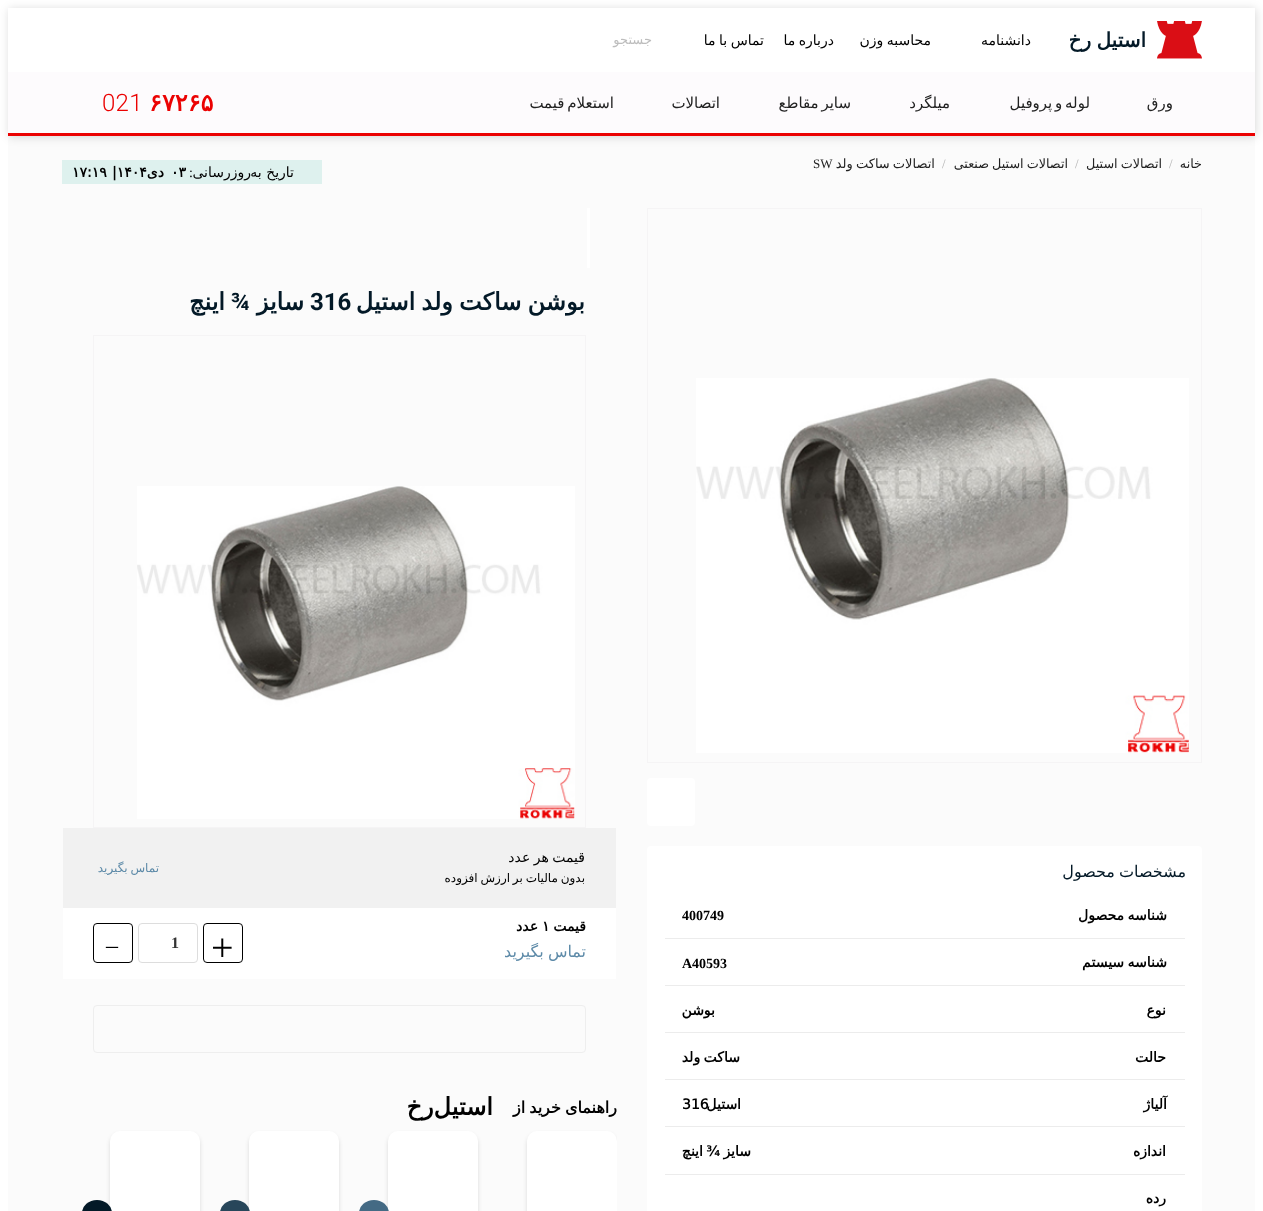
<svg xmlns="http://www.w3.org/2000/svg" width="1263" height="1211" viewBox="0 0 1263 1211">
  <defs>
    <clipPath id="clip1"><path d="M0 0H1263V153H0ZM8 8H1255V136H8Z" clip-rule="evenodd"/></clipPath>
    <filter id="blur1" x="-50%" y="-200%" width="200%" height="500%"><feGaussianBlur stdDeviation="5"/></filter>
    <clipPath id="clip2"><rect x="62" y="1093" width="555" height="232"/></clipPath>
    <clipPath id="clip3"><rect x="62" y="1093" width="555" height="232"/></clipPath>
    <filter id="blur2" x="-50%" y="-200%" width="200%" height="500%"><feGaussianBlur stdDeviation="2"/></filter>
  </defs>
  <rect width="100%" height="100%" fill="#ffffff"/>
  <rect x="8" y="136" width="1247" height="1075" fill="#fbfbfb"/>
  <g clip-path="url(#clip1)">
    <rect x="9" y="9" width="1247" height="128" fill="#000000" fill-opacity="0.15" filter="url(#blur1)"/>
  </g>
  <image x="1157" y="21" width="45" height="38" href="img1.png"/>
  <text x="1146" y="47" word-spacing="-1" font-family="DejaVu Sans" font-size="20" font-weight="bold" direction="rtl" fill="#031927">استیل رخ</text>
  <text x="1031" y="45" font-family="DejaVu Sans" font-size="14" direction="rtl" fill="#000000">دانشنامه</text>
  <text x="931" y="45" word-spacing="-1" font-family="DejaVu Sans" font-size="14" direction="rtl" fill="#000000">محاسبه وزن</text>
  <text x="834" y="45" word-spacing="-1" font-family="DejaVu Sans" font-size="14" direction="rtl" fill="#000000">درباره ما</text>
  <text x="764" y="45" word-spacing="-1" font-family="DejaVu Sans" font-size="14" direction="rtl" fill="#000000">تماس با ما</text>
  <text x="652" y="44" font-family="DejaVu Sans" font-size="13" direction="rtl" fill="#bdbdbd">جستجو</text>
  <rect x="8" y="72" width="1247" height="61" fill="#fdfbfd"/>
  <rect x="8" y="133" width="1247" height="3" fill="#eb0202"/>
  <text x="1173" y="108" font-family="DejaVu Sans" font-size="15" letter-spacing="0.25" direction="rtl" fill="#222222">ورق</text>
  <text x="1090" y="108" word-spacing="-2" font-family="DejaVu Sans" font-size="15" letter-spacing="0.25" direction="rtl" fill="#222222">لوله و پروفیل</text>
  <text x="950" y="108" font-family="DejaVu Sans" font-size="15" letter-spacing="0.25" direction="rtl" fill="#222222">میلگرد</text>
  <text x="851" y="108" word-spacing="-2" font-family="DejaVu Sans" font-size="15" letter-spacing="0.25" direction="rtl" fill="#222222">سایر مقاطع</text>
  <text x="720" y="108" font-family="DejaVu Sans" font-size="15" letter-spacing="0.25" direction="rtl" fill="#222222">اتصالات</text>
  <text x="614" y="108" word-spacing="-2" font-family="DejaVu Sans" font-size="15" letter-spacing="0.25" direction="rtl" fill="#222222">استعلام قیمت</text>
  <text x="149" y="111" font-family="DejaVu Sans" font-size="24" font-weight="bold" letter-spacing="0.25" fill="#eb0202">۶۷۲۶۵</text>
  <text x="102" y="111" font-family="Roboto" font-size="24" font-weight="300" letter-spacing="0.25" fill="#eb0202">021</text>
  <text x="1202" y="168" font-family="DejaVu Sans" font-size="12.75" direction="rtl" fill="#222222">خانه</text>
  <text x="1169" y="168" font-family="Liberation Serif" font-size="12.75" fill="#afafaf">/</text>
  <text x="1162" y="168" word-spacing="-1" font-family="DejaVu Sans" font-size="12.75" direction="rtl" fill="#222222">اتصالات استیل</text>
  <text x="1075" y="168" font-family="Liberation Serif" font-size="12.75" fill="#afafaf">/</text>
  <text x="1068" y="168" word-spacing="-1" font-family="DejaVu Sans" font-size="12.75" direction="rtl" fill="#222222">اتصالات استیل صنعتی</text>
  <text x="942" y="168" font-family="Liberation Serif" font-size="12.75" fill="#afafaf">/</text>
  <text x="935" y="168" word-spacing="-1" font-family="DejaVu Sans" font-size="13" direction="rtl" fill="#222222">اتصالات ساکت ولد</text>
  <text x="813" y="168" font-family="Liberation Serif" font-size="13" fill="#222222">SW</text>
  <rect x="62" y="160" width="260" height="24" fill="#def1ee"/>
  <text x="294" y="177" font-family="DejaVu Sans" font-size="14" direction="rtl" fill="#000000">تاریخ به</text>
  <text x="251" y="177" font-family="DejaVu Sans" font-size="14" direction="rtl" fill="#000000">روزرسانی</text>
  <text x="193" y="177" font-family="Liberation Serif" font-size="14" direction="rtl" fill="#000000">:</text>
  <text x="171" y="177" font-family="DejaVu Sans" font-size="14" font-weight="bold" fill="#000000">۰۳</text>
  <text x="164" y="177" font-family="DejaVu Sans" font-size="14" font-weight="bold" direction="rtl" fill="#000000">دی</text>
  <text x="112" y="177" font-family="DejaVu Sans" font-size="14" font-weight="bold" fill="#000000">|۱۴۰۴</text>
  <text x="72" y="177" font-family="DejaVu Sans" font-size="14" font-weight="bold" fill="#000000">۱۷:۱۹</text>
  <rect x="647.5" y="208.5" width="554" height="554" fill="none" stroke="#f5f4f5"/>
  <image x="696" y="378" width="493" height="375" href="img2.png"/>
  <rect x="647" y="778" width="48" height="48" rx="4" fill="#ffffff"/>
  <rect x="647" y="846" width="555" height="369" rx="4" fill="#ffffff"/>
  <text x="1186" y="877" word-spacing="-1" font-family="DejaVu Sans" font-size="16" direction="rtl" fill="#031927">مشخصات محصول</text>
  <rect x="665" y="938" width="520" height="1" fill="#ececec"/>
  <text x="1167" y="920" word-spacing="-1" font-family="DejaVu Sans" font-size="14" font-weight="bold" direction="rtl" fill="#000000">شناسه محصول</text>
  <text x="682" y="920" font-family="Liberation Serif" font-size="14" font-weight="bold" fill="#000000">400749</text>
  <rect x="665" y="985" width="520" height="1" fill="#ececec"/>
  <text x="1167" y="967" word-spacing="-1" font-family="DejaVu Sans" font-size="14" font-weight="bold" direction="rtl" fill="#000000">شناسه سیستم</text>
  <text x="682" y="968" font-family="Liberation Serif" font-size="14" font-weight="bold" fill="#000000">A40593</text>
  <rect x="665" y="1032" width="520" height="1" fill="#ececec"/>
  <text x="1166" y="1015" font-family="DejaVu Sans" font-size="14" font-weight="bold" direction="rtl" fill="#000000">نوع</text>
  <text x="715" y="1015" font-family="DejaVu Sans" font-size="14" font-weight="bold" direction="rtl" fill="#000000">بوشن</text>
  <rect x="665" y="1079" width="520" height="1" fill="#ececec"/>
  <text x="1166" y="1062" font-family="DejaVu Sans" font-size="14" font-weight="bold" direction="rtl" fill="#000000">حالت</text>
  <text x="740" y="1062" word-spacing="-1" font-family="DejaVu Sans" font-size="14" font-weight="bold" direction="rtl" fill="#000000">ساکت ولد</text>
  <rect x="665" y="1126" width="520" height="1" fill="#ececec"/>
  <text x="1167" y="1109" font-family="DejaVu Sans" font-size="14" font-weight="bold" direction="rtl" fill="#000000">آلیاژ</text>
  <text x="682" y="1109" font-family="DejaVu Sans" font-size="14" font-weight="bold" fill="#000000">316</text>
  <text x="741" y="1109" font-family="DejaVu Sans" font-size="14" font-weight="bold" direction="rtl" fill="#000000">استیل</text>
  <rect x="665" y="1174" width="520" height="1" fill="#ececec"/>
  <text x="1166" y="1156" font-family="DejaVu Sans" font-size="14" font-weight="bold" direction="rtl" fill="#000000">اندازه</text>
  <text x="751" y="1156" word-spacing="-1" font-family="DejaVu Sans" font-size="14" font-weight="bold" direction="rtl" fill="#000000">سایز ¾ اینچ</text>
  <text x="1166" y="1203" font-family="DejaVu Sans" font-size="14" font-weight="bold" direction="rtl" fill="#000000">رده</text>
  <rect x="587" y="208" width="3" height="60" fill="#ffffff"/>
  <text x="585" y="310" word-spacing="-1.5" font-family="DejaVu Sans" font-size="24" font-weight="bold" direction="rtl" fill="#031927">بوشن ساکت ولد استیل</text>
  <text x="310" y="310" font-family="Roboto" font-size="24" font-weight="bold" fill="#031927">316</text>
  <text x="304" y="310" font-family="DejaVu Sans" font-size="24" font-weight="bold" direction="rtl" fill="#031927">سایز</text>
  <text x="250" y="310" font-family="Roboto" font-size="24" font-weight="bold" direction="rtl" fill="#031927">¾</text>
  <text x="225" y="310" font-family="DejaVu Sans" font-size="24" font-weight="bold" direction="rtl" fill="#031927">اینچ</text>
  <rect x="93.5" y="335.5" width="492" height="492" fill="none" stroke="#f5f4f5"/>
  <image x="137" y="486" width="438" height="333" href="img3.png"/>
  <rect x="63" y="828" width="553" height="80" fill="#f1f1f1"/>
  <text x="585" y="862" word-spacing="-1" font-family="DejaVu Sans" font-size="14" direction="rtl" fill="#000000">قیمت هر عدد</text>
  <text x="585" y="882" word-spacing="-1" font-family="DejaVu Sans" font-size="12" direction="rtl" fill="#000000">بدون مالیات بر ارزش افزوده</text>
  <text x="159" y="872" word-spacing="-1" font-family="DejaVu Sans" font-size="12" direction="rtl" fill="#5d8aa8">تماس بگیرید</text>
  <rect x="63" y="908" width="553" height="71" fill="#ffffff"/>
  <text x="586" y="931" font-family="DejaVu Sans" font-size="14" font-weight="bold" direction="rtl" fill="#000000">قیمت</text>
  <text x="542" y="931" font-family="DejaVu Sans" font-size="14" font-weight="bold" fill="#000000">۱</text>
  <text x="538" y="931" font-family="DejaVu Sans" font-size="14" font-weight="bold" direction="rtl" fill="#000000">عدد</text>
  <text x="586" y="957" word-spacing="-1" font-family="DejaVu Sans" font-size="16" direction="rtl" fill="#5d8aa8">تماس بگیرید</text>
  <rect x="203.5" y="923.5" width="39" height="39" rx="3.5" fill="none" stroke="#000000"/>
  <text x="211" y="961" font-family="Liberation Serif" font-size="40" letter-spacing="1" fill="#000000">+</text>
  <rect x="138.5" y="923.5" width="59" height="39" rx="3.5" fill="none" stroke="#dddddd"/>
  <text x="171" y="948" font-family="Liberation Serif" font-size="16" font-weight="bold" fill="#333333">1</text>
  <rect x="93.5" y="923.5" width="39" height="39" rx="3.5" fill="none" stroke="#000000"/>
  <text x="106" y="953" font-family="Liberation Serif" font-size="24" letter-spacing="1" fill="#000000">–</text>
  <rect x="93.5" y="1005.5" width="492" height="47" rx="3.5" fill="none" stroke="#eeeeee"/>
  <g clip-path="url(#clip2)">
    <text x="617" y="1113" word-spacing="-1" font-family="DejaVu Sans" font-size="16" font-weight="bold" direction="rtl" fill="#000000">راهنمای خرید از</text>
  </g>
  <text x="493" y="1115" font-family="DejaVu Sans" font-size="24" font-weight="bold" direction="rtl" fill="#000000">استیل‌رخ</text>
  <g clip-path="url(#clip3)">
    <rect x="527" y="1134" width="90" height="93" rx="10" fill="#000000" fill-opacity="0.13" filter="url(#blur2)"/>
  </g>
  <rect x="527" y="1131" width="90" height="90" rx="10" fill="#ffffff"/>
  <rect x="388" y="1134" width="90" height="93" rx="10" fill="#000000" fill-opacity="0.13" filter="url(#blur2)"/>
  <rect x="388" y="1131" width="90" height="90" rx="10" fill="#ffffff"/>
  <rect x="359" y="1200" width="30" height="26" rx="15" fill="#446a84"/>
  <rect x="249" y="1134" width="90" height="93" rx="10" fill="#000000" fill-opacity="0.13" filter="url(#blur2)"/>
  <rect x="249" y="1131" width="90" height="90" rx="10" fill="#ffffff"/>
  <rect x="220" y="1200" width="30" height="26" rx="15" fill="#27465a"/>
  <rect x="110" y="1134" width="90" height="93" rx="10" fill="#000000" fill-opacity="0.13" filter="url(#blur2)"/>
  <rect x="110" y="1131" width="90" height="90" rx="10" fill="#ffffff"/>
  <rect x="82" y="1200" width="30" height="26" rx="15" fill="#031927"/>
</svg>
